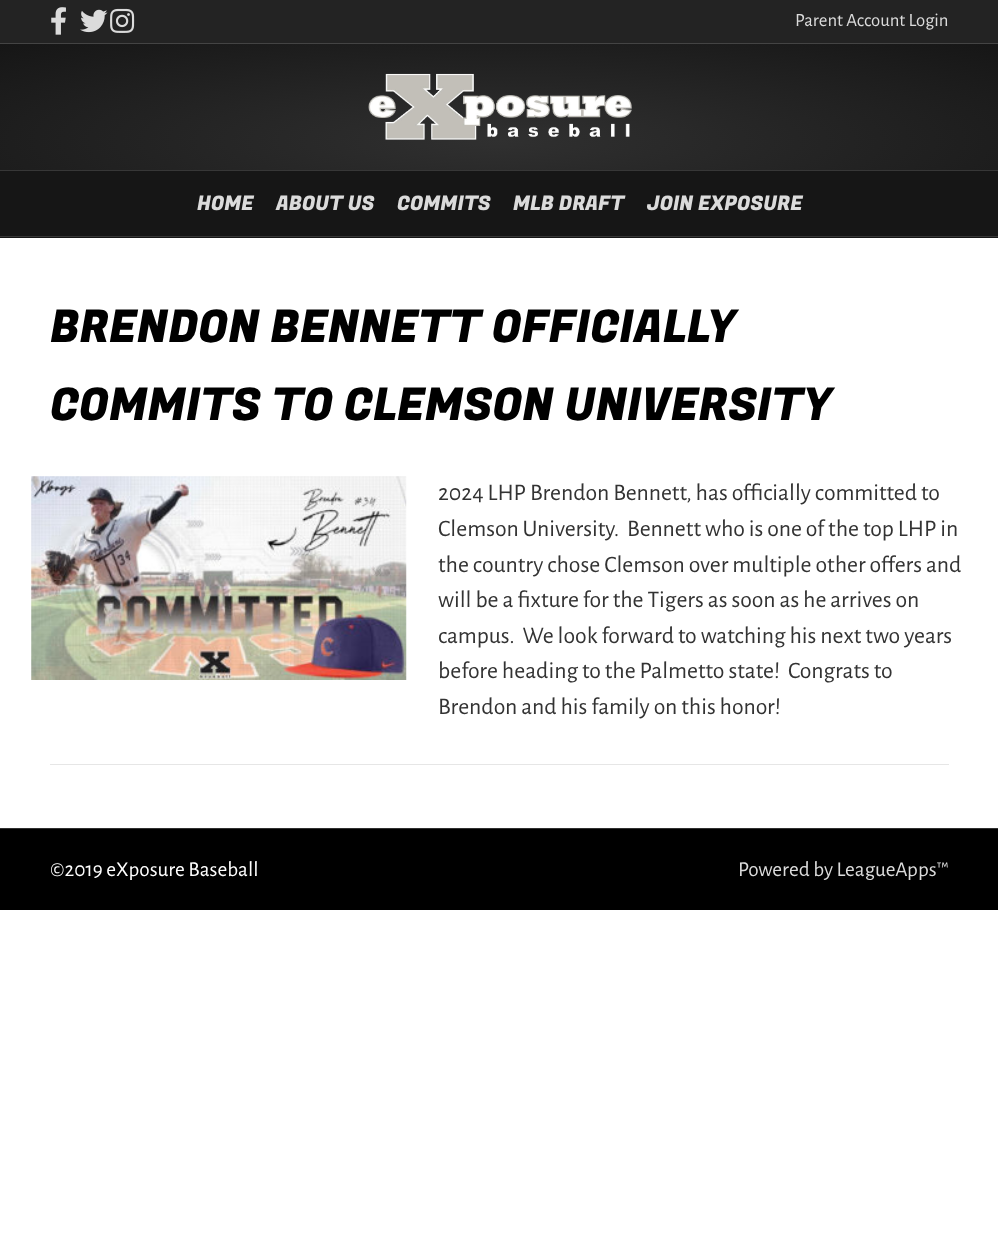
<svg xmlns="http://www.w3.org/2000/svg" width="998" height="1254" viewBox="0 0 998 1254">
  <defs>
    <radialGradient id="g1" gradientUnits="userSpaceOnUse" cx="0" cy="0" r="1" gradientTransform="matrix(706 0 0 137 499 141)"><stop offset="0" stop-color="#303030"/><stop offset="1" stop-color="#161616"/></radialGradient>
  </defs>
  <rect width="100%" height="100%" fill="#ffffff"/>
  <rect x="0" y="0" width="998" height="43" fill="#232323"/>
  <rect x="0" y="43" width="998" height="1" fill="#444444"/>
  <image x="51" y="7" width="15" height="28" href="img1.png"/>
  <image x="80" y="9" width="28" height="24" href="img2.png"/>
  <image x="110" y="8" width="25" height="25" href="img3.png"/>
  <text x="795" y="26" font-family="Alegreya Sans" font-size="18.75" fill="#dbdbdb">Parent Account Login</text>
  <rect x="0" y="44" width="998" height="126" fill="url(#g1)"/>
  <image x="368" y="73" width="264" height="67" href="img4.png"/>
  <rect x="0" y="171" width="998" height="67" fill="#161616"/>
  <rect x="0" y="170" width="998" height="1" fill="#373737"/>
  <rect x="0" y="236" width="998" height="1" fill="#373737"/>
  <text x="197" y="210" font-family="Fugaz One" font-size="20" fill="#dbdbdb">HOME</text>
  <text x="276" y="210" font-family="Fugaz One" font-size="20" fill="#dbdbdb">ABOUT US</text>
  <text x="397" y="210" font-family="Fugaz One" font-size="20" fill="#dbdbdb">COMMITS</text>
  <text x="513" y="210" font-family="Fugaz One" font-size="20" fill="#dbdbdb">MLB DRAFT</text>
  <text x="647" y="210" font-family="Fugaz One" font-size="20" fill="#dbdbdb">JOIN EXPOSURE</text>
  <text x="50" y="342" font-family="Fugaz One" font-size="45" fill="#000000">BRENDON BENNETT OFFICIALLY</text>
  <text x="50" y="420" font-family="Fugaz One" font-size="45" fill="#000000">COMMITS TO CLEMSON UNIVERSITY</text>
  <image x="31" y="476" width="376" height="204" href="img5.png"/>
  <text x="438" y="500" font-family="Alegreya Sans" font-size="23.75" fill="#333333">2024 LHP Brendon Bennett, has officially committed to</text>
  <text x="438" y="536" font-family="Alegreya Sans" font-size="23.75" fill="#333333" xml:space="preserve">Clemson University.  Bennett who is one of the top LHP in</text>
  <text x="438" y="572" font-family="Alegreya Sans" font-size="23.75" fill="#333333">the country chose Clemson over multiple other offers and</text>
  <text x="438" y="607" font-family="Alegreya Sans" font-size="23.75" fill="#333333">will be a fixture for the Tigers as soon as he arrives on</text>
  <text x="438" y="643" font-family="Alegreya Sans" font-size="23.75" fill="#333333" xml:space="preserve">campus.  We look forward to watching his next two years</text>
  <text x="438" y="678" font-family="Alegreya Sans" font-size="23.75" fill="#333333" xml:space="preserve">before heading to the Palmetto state!  Congrats to</text>
  <text x="438" y="714" font-family="Alegreya Sans" font-size="23.75" fill="#333333">Brendon and his family on this honor!</text>
  <rect x="50" y="764" width="899" height="1" fill="#e6e6e6"/>
  <rect x="0" y="829" width="998" height="81" fill="#000000"/>
  <rect x="0" y="828" width="998" height="1" fill="#303030"/>
  <text x="50" y="876" font-family="Alegreya Sans" font-size="21.25" fill="#ffffff">©2019 eXposure Baseball</text>
  <text x="738" y="876" font-family="Alegreya Sans" font-size="21.25" fill="#dbdbdb">Powered by LeagueApps™</text>
</svg>
